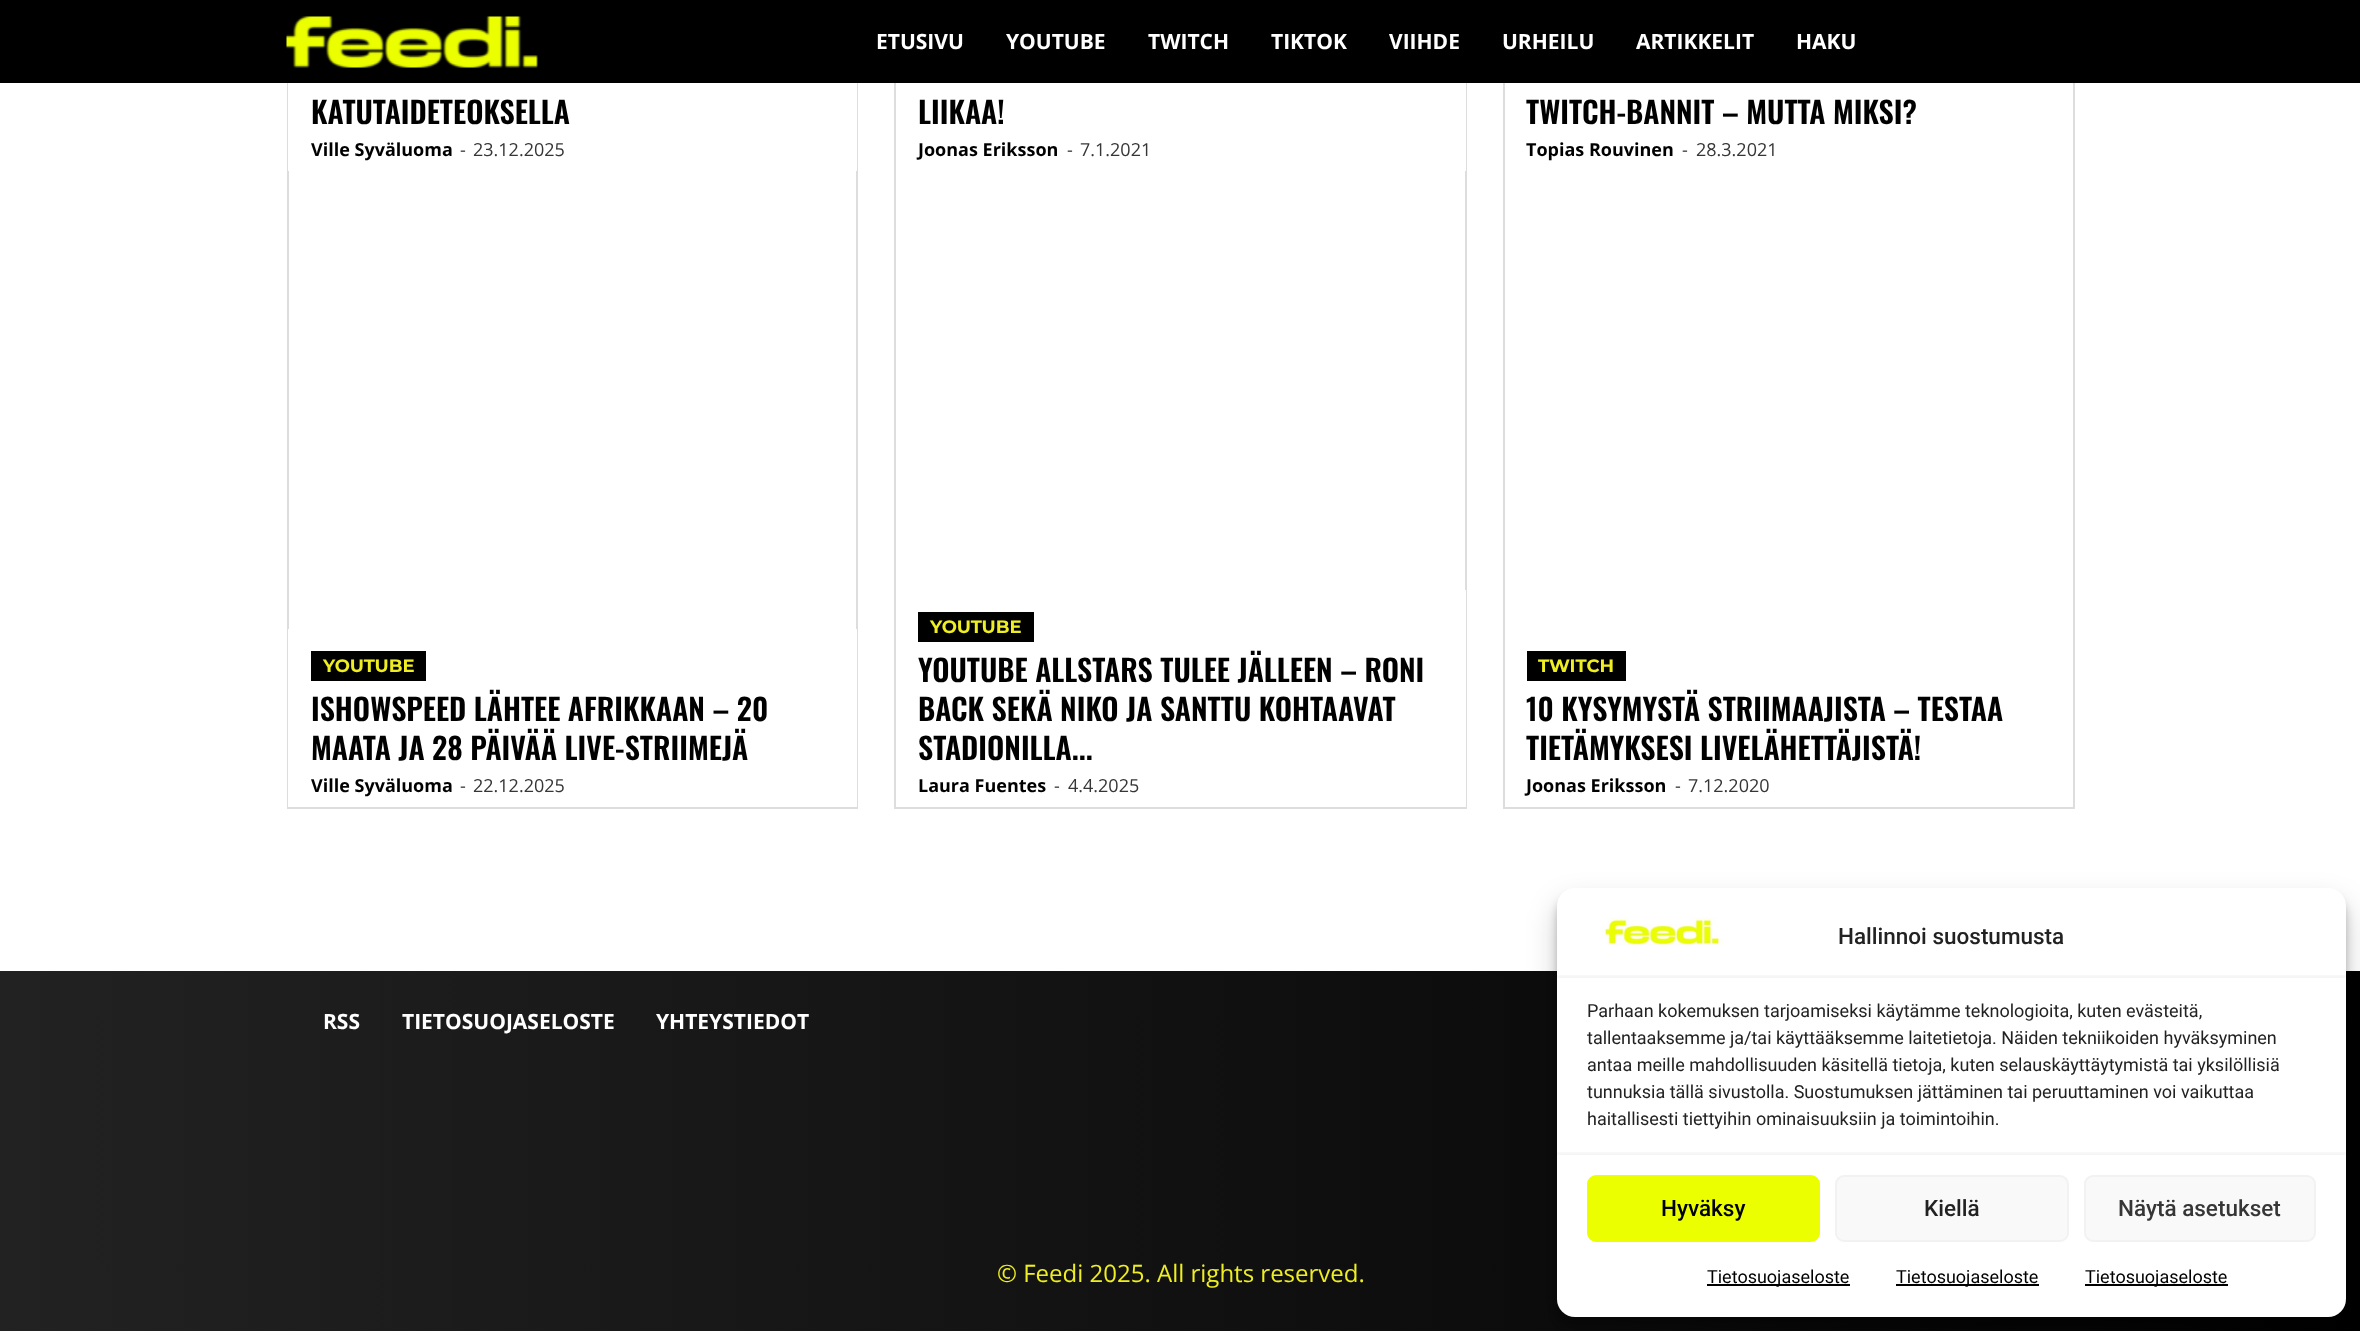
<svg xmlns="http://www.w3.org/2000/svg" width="2360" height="1331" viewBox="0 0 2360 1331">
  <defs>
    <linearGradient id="g1" gradientUnits="userSpaceOnUse" x1="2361" y1="1151" x2="0" y2="1151"><stop offset="0" stop-color="#000000"/><stop offset="1" stop-color="#222222"/></linearGradient>
    <filter id="blur1" x="-50%" y="-200%" width="200%" height="500%"><feGaussianBlur stdDeviation="4.5"/></filter>
    <filter id="blur2" x="-50%" y="-200%" width="200%" height="500%"><feGaussianBlur stdDeviation="15"/></filter>
    <clipPath id="clip1"><rect x="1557" y="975" width="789" height="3"/></clipPath>
    <filter id="blur3" x="-50%" y="-200%" width="200%" height="500%"><feGaussianBlur stdDeviation="2"/></filter>
    <clipPath id="clip2"><rect x="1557" y="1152" width="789" height="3"/></clipPath>
  </defs>
  <rect width="100%" height="100%" fill="#ffffff"/>
  <rect x="288" y="-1" width="569" height="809" fill="none" stroke="#dddddd" stroke-width="2"/>
  <rect x="895" y="-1" width="571" height="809" fill="none" stroke="#dddddd" stroke-width="2"/>
  <rect x="1504" y="-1" width="570" height="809" fill="none" stroke="#dddddd" stroke-width="2"/>
  <rect x="0" y="0" width="2360" height="83" fill="#000000"/>
  <image x="286" y="16" width="252" height="52" href="img1.png"/>
  <text x="876" y="49" font-family="Open Sans" font-size="21" font-weight="bold" fill="#ffffff">ETUSIVU</text>
  <text x="1006" y="49" font-family="Open Sans" font-size="21" font-weight="bold" fill="#ffffff">YOUTUBE</text>
  <text x="1148" y="49" font-family="Open Sans" font-size="21" font-weight="bold" fill="#ffffff">TWITCH</text>
  <text x="1271" y="49" font-family="Open Sans" font-size="21" font-weight="bold" fill="#ffffff">TIKTOK</text>
  <text x="1389" y="49" font-family="Open Sans" font-size="21" font-weight="bold" fill="#ffffff">VIIHDE</text>
  <text x="1502" y="49" font-family="Open Sans" font-size="21" font-weight="bold" fill="#ffffff">URHEILU</text>
  <text x="1636" y="49" font-family="Open Sans" font-size="21" font-weight="bold" fill="#ffffff">ARTIKKELIT</text>
  <text x="1796" y="49" font-family="Open Sans" font-size="21" font-weight="bold" fill="#ffffff">HAKU</text>
  <rect x="288" y="83" width="569" height="88" fill="#ffffff"/>
  <text x="311" y="124" font-family="Oswald" font-size="30" font-weight="600" fill="#000000">KATUTAIDETEOKSELLA</text>
  <text x="311" y="156" font-family="Open Sans" font-size="18" font-weight="bold" fill="#000000">Ville Syväluoma</text>
  <text x="460" y="156" font-family="Open Sans" font-size="18" fill="#363636">-</text>
  <text x="473" y="156" font-family="Open Sans" font-size="18" fill="#363636">23.12.2025</text>
  <rect x="288" y="629" width="569" height="178" fill="#ffffff"/>
  <rect x="311" y="651" width="115" height="30" fill="#000000"/>
  <text x="323" y="672" font-family="Montserrat" font-size="18" font-weight="bold" fill="#eeee22">YOUTUBE</text>
  <text x="311" y="721" font-family="Oswald" font-size="30" font-weight="600" fill="#000000">ISHOWSPEED LÄHTEE AFRIKKAAN – 20</text>
  <text x="311" y="760" font-family="Oswald" font-size="30" font-weight="600" fill="#000000">MAATA JA 28 PÄIVÄÄ LIVE-STRIIMEJÄ</text>
  <text x="311" y="792" font-family="Open Sans" font-size="18" font-weight="bold" fill="#000000">Ville Syväluoma</text>
  <text x="460" y="792" font-family="Open Sans" font-size="18" fill="#363636">-</text>
  <text x="473" y="792" font-family="Open Sans" font-size="18" fill="#363636">22.12.2025</text>
  <rect x="1465" y="83" width="1" height="88" fill="#ffffff"/>
  <text x="918" y="124" font-family="Oswald" font-size="30" font-weight="600" fill="#000000">LIIKAA!</text>
  <text x="918" y="156" font-family="Open Sans" font-size="18" font-weight="bold" fill="#000000">Joonas Eriksson</text>
  <text x="1067" y="156" font-family="Open Sans" font-size="18" fill="#363636">-</text>
  <text x="1080" y="156" font-family="Open Sans" font-size="18" fill="#363636">7.1.2021</text>
  <rect x="1465" y="590" width="1" height="217" fill="#ffffff"/>
  <rect x="918" y="612" width="116" height="30" fill="#000000"/>
  <text x="930" y="633" font-family="Montserrat" font-size="18" font-weight="bold" fill="#eeee22">YOUTUBE</text>
  <text x="918" y="682" font-family="Oswald" font-size="30" font-weight="600" fill="#000000">YOUTUBE ALLSTARS TULEE JÄLLEEN – RONI</text>
  <text x="918" y="721" font-family="Oswald" font-size="30" font-weight="600" fill="#000000">BACK SEKÄ NIKO JA SANTTU KOHTAAVAT</text>
  <text x="918" y="760" font-family="Oswald" font-size="30" font-weight="600" fill="#000000">STADIONILLA...</text>
  <text x="918" y="792" font-family="Open Sans" font-size="18" font-weight="bold" fill="#000000">Laura Fuentes</text>
  <text x="1054" y="792" font-family="Open Sans" font-size="18" fill="#363636">-</text>
  <text x="1068" y="792" font-family="Open Sans" font-size="18" fill="#363636">4.4.2025</text>
  <text x="1526" y="124" font-family="Oswald" font-size="30" font-weight="600" fill="#000000">TWITCH-BANNIT – MUTTA MIKSI?</text>
  <text x="1526" y="156" font-family="Open Sans" font-size="18" font-weight="bold" fill="#000000">Topias Rouvinen</text>
  <text x="1682" y="156" font-family="Open Sans" font-size="18" fill="#363636">-</text>
  <text x="1696" y="156" font-family="Open Sans" font-size="18" fill="#363636">28.3.2021</text>
  <rect x="1527" y="651" width="99" height="30" fill="#000000"/>
  <text x="1538" y="672" font-family="Montserrat" font-size="18" font-weight="bold" fill="#eeee22">TWITCH</text>
  <text x="1526" y="721" font-family="Oswald" font-size="30" font-weight="600" fill="#000000">10 KYSYMYSTÄ STRIIMAAJISTA – TESTAA</text>
  <text x="1526" y="760" font-family="Oswald" font-size="30" font-weight="600" fill="#000000">TIETÄMYKSESI LIVELÄHETTÄJISTÄ!</text>
  <text x="1526" y="792" font-family="Open Sans" font-size="18" font-weight="bold" fill="#000000">Joonas Eriksson</text>
  <text x="1675" y="792" font-family="Open Sans" font-size="18" fill="#363636">-</text>
  <text x="1688" y="792" font-family="Open Sans" font-size="18" fill="#363636">7.12.2020</text>
  <rect x="0" y="971" width="2360" height="360" fill="url(#g1)"/>
  <text x="323" y="1029" font-family="Open Sans" font-size="21" font-weight="bold" fill="#ffffff">RSS</text>
  <text x="402" y="1029" font-family="Open Sans" font-size="21" font-weight="bold" fill="#ffffff">TIETOSUOJASELOSTE</text>
  <text x="656" y="1029" font-family="Open Sans" font-size="21" font-weight="bold" fill="#ffffff">YHTEYSTIEDOT</text>
  <text x="997" y="1282" font-family="Open Sans" font-size="24" fill="#eeee22">© Feedi 2025. All rights reserved.</text>
  <rect x="1557" y="897" width="789" height="429" rx="18" fill="#000000" fill-opacity="0.23" filter="url(#blur1)"/>
  <rect x="1557" y="903" width="789" height="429" rx="18" fill="#000000" fill-opacity="0.19" filter="url(#blur2)"/>
  <rect x="1557" y="888" width="789" height="429" rx="18" fill="#ffffff"/>
  <image x="1601" y="917" width="123" height="29" href="img2.png"/>
  <text x="1838" y="944" font-family="Roboto" font-size="22.5" font-weight="500" fill="#222222">Hallinnoi suostumusta</text>
  <g clip-path="url(#clip1)">
    <rect x="1557" y="975" width="789" height="5" fill="#000000" fill-opacity="0.05" filter="url(#blur3)"/>
  </g>
  <text x="1587" y="1017" font-family="Roboto" font-size="18" fill="#222222">Parhaan kokemuksen tarjoamiseksi käytämme teknologioita, kuten evästeitä,</text>
  <text x="1587" y="1044" font-family="Roboto" font-size="18" fill="#222222">tallentaaksemme ja/tai käyttääksemme laitetietoja. Näiden tekniikoiden hyväksyminen</text>
  <text x="1587" y="1071" font-family="Roboto" font-size="18" fill="#222222">antaa meille mahdollisuuden käsitellä tietoja, kuten selauskäyttäytymistä tai yksilöllisiä</text>
  <text x="1587" y="1098" font-family="Roboto" font-size="18" fill="#222222">tunnuksia tällä sivustolla. Suostumuksen jättäminen tai peruuttaminen voi vaikuttaa</text>
  <text x="1587" y="1125" font-family="Roboto" font-size="18" fill="#222222">haitallisesti tiettyihin ominaisuuksiin ja toimintoihin.</text>
  <g clip-path="url(#clip2)">
    <rect x="1557" y="1152" width="789" height="5" fill="#000000" fill-opacity="0.05" filter="url(#blur3)"/>
  </g>
  <rect x="1588" y="1176" width="231" height="65" rx="8" fill="#ebff00" stroke="#ebff00" stroke-width="2"/>
  <text x="1661" y="1216" font-family="Roboto" font-size="22.5" font-weight="500" fill="#000000">Hyväksy</text>
  <rect x="1836" y="1176" width="232" height="65" rx="8" fill="#f9f9f9" stroke="#f2f2f2" stroke-width="2"/>
  <text x="1924" y="1216" font-family="Roboto" font-size="22.5" font-weight="500" fill="#222222">Kiellä</text>
  <rect x="2085" y="1176" width="230" height="65" rx="8" fill="#f9f9f9" stroke="#f2f2f2" stroke-width="2"/>
  <text x="2118" y="1216" font-family="Roboto" font-size="22.5" font-weight="500" fill="#363636">Näytä asetukset</text>
  <rect x="1707" y="1284" width="143" height="2" fill="#000000"/>
  <text x="1707" y="1283" font-family="Roboto" font-size="18" fill="#000000">Tietosuojaseloste</text>
  <rect x="1896" y="1284" width="143" height="2" fill="#000000"/>
  <text x="1896" y="1283" font-family="Roboto" font-size="18" fill="#000000">Tietosuojaseloste</text>
  <rect x="2085" y="1284" width="143" height="2" fill="#000000"/>
  <text x="2085" y="1283" font-family="Roboto" font-size="18" fill="#000000">Tietosuojaseloste</text>
</svg>
